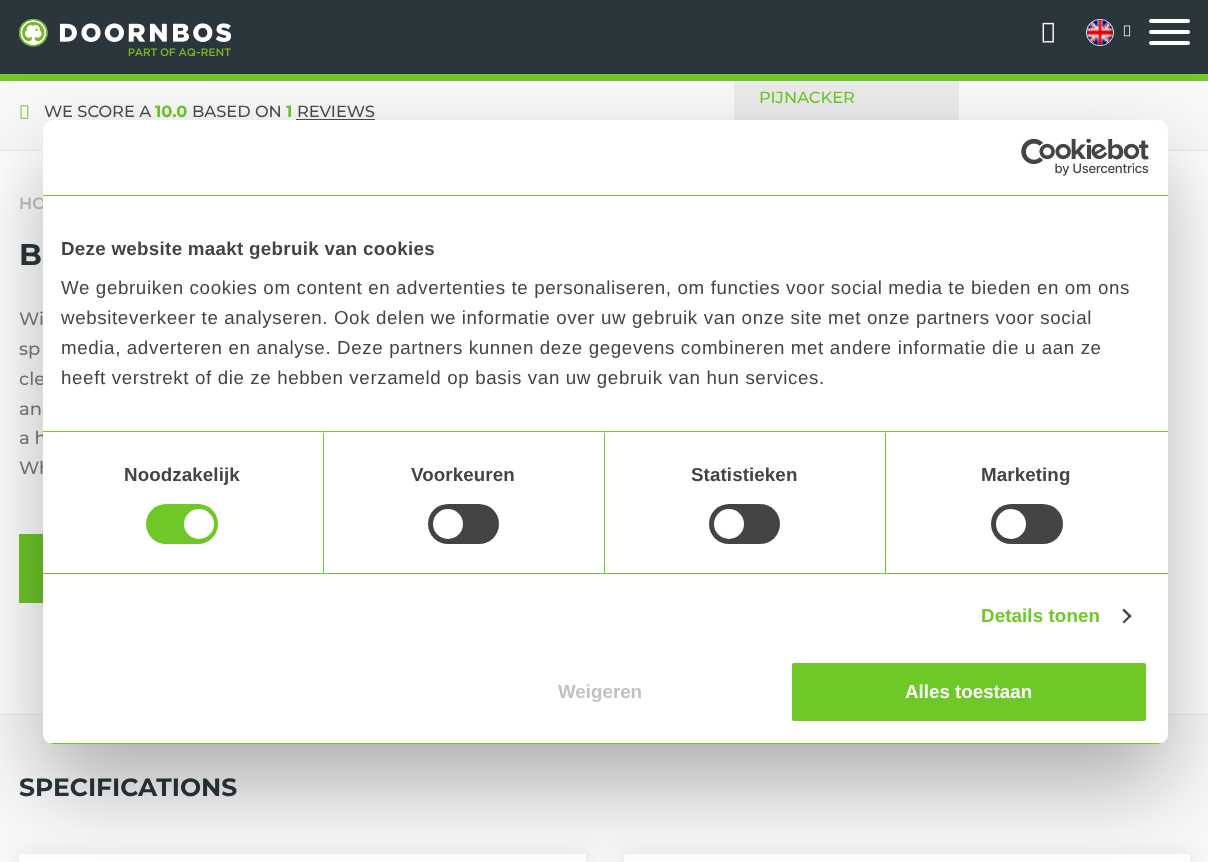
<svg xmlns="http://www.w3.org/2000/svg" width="1208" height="862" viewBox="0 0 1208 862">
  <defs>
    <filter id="blur1" x="-50%" y="-200%" width="200%" height="500%"><feGaussianBlur stdDeviation="12.5"/></filter>
    <filter id="blur2" x="-50%" y="-200%" width="200%" height="500%"><feGaussianBlur stdDeviation="42.5"/></filter>
    <clipPath id="clip1"><rect x="43" y="120" width="1125" height="624" rx="10"/></clipPath>
  </defs>
  <rect width="100%" height="100%" fill="#ffffff"/>
  <rect x="0" y="0" width="1208" height="74" fill="#2a363b"/>
  <image x="19" y="19" width="212" height="37" href="img1.png"/>
  <image x="1042" y="22" width="12" height="21" href="img2.png"/>
  <rect x="1086.5" y="19.5" width="27" height="26" rx="13" fill="none" stroke="#ffffff"/>
  <image x="1087" y="19" width="26" height="27" href="img3.png"/>
  <image x="1123" y="25" width="8" height="12" href="img4.png"/>
  <rect x="1149" y="19" width="41" height="4" rx="2" fill="#ffffff"/>
  <rect x="1149" y="30" width="41" height="4" rx="2" fill="#ffffff"/>
  <rect x="1149" y="41" width="41" height="4" rx="2" fill="#ffffff"/>
  <rect x="0" y="74" width="1208" height="7" fill="#6ec828"/>
  <rect x="0" y="81" width="1208" height="69" fill="#f9f9f9"/>
  <rect x="0" y="150" width="1208" height="1" fill="#ebebeb"/>
  <rect x="734" y="81" width="225" height="39" fill="#ebebeb"/>
  <text x="759" y="103" font-family="Montserrat" font-size="16.25" font-weight="500" fill="#6ec828">PIJNACKER</text>
  <image x="20" y="105" width="9" height="14" href="img5.png"/>
  <text x="44" y="117" font-family="Montserrat" font-size="16.25" font-weight="500" fill="#4f4f4f">WE SCORE A</text>
  <text x="155" y="117" font-family="Montserrat" font-size="16.25" font-weight="bold" fill="#6ec828">10.0</text>
  <text x="192" y="117" font-family="Montserrat" font-size="16.25" font-weight="500" fill="#4f4f4f">BASED ON</text>
  <text x="286" y="117" font-family="Montserrat" font-size="16.25" font-weight="bold" fill="#6ec828">1</text>
  <text x="297" y="117" font-family="Montserrat" font-size="16.25" font-weight="500" fill="#4f4f4f">REVIEWS</text>
  <rect x="296" y="119" width="79" height="1" fill="#4f4f4f"/>
  <text x="19" y="209" font-family="Montserrat" font-size="16.25" font-weight="600" fill="#c2c2c2">HO</text>
  <text x="19" y="265" font-family="Montserrat" font-size="30" font-weight="bold" fill="#2a363b">B</text>
  <text x="19" y="325" font-family="Montserrat" font-size="18" font-weight="500" fill="#7d7d7d">Wi</text>
  <text x="19" y="355" font-family="Montserrat" font-size="18" font-weight="500" fill="#7d7d7d">sp</text>
  <text x="19" y="385" font-family="Montserrat" font-size="18" font-weight="500" fill="#7d7d7d">cle</text>
  <text x="19" y="415" font-family="Montserrat" font-size="18" font-weight="500" fill="#7d7d7d">an</text>
  <text x="19" y="444" font-family="Montserrat" font-size="18" font-weight="500" fill="#7d7d7d">a h</text>
  <text x="19" y="474" font-family="Montserrat" font-size="18" font-weight="500" fill="#7d7d7d">Wh</text>
  <rect x="19" y="534" width="24" height="69" fill="#6ec828"/>
  <rect x="0" y="715" width="1208" height="147" fill="#f9f9f9"/>
  <rect x="0" y="714" width="1208" height="1" fill="#ebebeb"/>
  <text x="19" y="796" font-family="Montserrat" font-size="25" font-weight="bold" fill="#2a363b">SPECIFICATIONS</text>
  <rect x="19" y="856" width="567" height="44" fill="#000000" fill-opacity="0.1" filter="url(#blur1)"/>
  <rect x="19" y="854" width="567" height="8" fill="#ffffff"/>
  <rect x="624" y="856" width="566" height="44" fill="#000000" fill-opacity="0.1" filter="url(#blur1)"/>
  <rect x="624" y="854" width="566" height="8" fill="#ffffff"/>
  <rect x="43" y="160" width="1125" height="624" rx="10" fill="#000000" fill-opacity="0.3" filter="url(#blur2)"/>
  <rect x="43" y="120" width="1125" height="624" rx="10" fill="#ffffff"/>
  <rect x="43" y="195" width="1125" height="1" fill="#6ec828"/>
  <image x="1021" y="139" width="128" height="37" href="img6.png"/>
  <rect x="43" y="431" width="1125" height="1" fill="#6ec828"/>
  <text x="61" y="255" font-family="Liberation Sans" font-size="18.75" font-weight="bold" letter-spacing="0.3" fill="#444444">Deze website maakt gebruik van cookies</text>
  <text x="61" y="294" font-family="Liberation Sans" font-size="18.75" letter-spacing="0.62" fill="#444444">We gebruiken cookies om content en advertenties te personaliseren, om functies voor social media te bieden en om ons</text>
  <text x="61" y="324" font-family="Liberation Sans" font-size="18.75" letter-spacing="0.62" fill="#444444">websiteverkeer te analyseren. Ook delen we informatie over uw gebruik van onze site met onze partners voor social</text>
  <text x="61" y="354" font-family="Liberation Sans" font-size="18.75" letter-spacing="0.62" fill="#444444">media, adverteren en analyse. Deze partners kunnen deze gegevens combineren met andere informatie die u aan ze</text>
  <text x="61" y="384" font-family="Liberation Sans" font-size="18.75" letter-spacing="0.62" fill="#444444">heeft verstrekt of die ze hebben verzameld op basis van uw gebruik van hun services.</text>
  <rect x="43" y="573" width="1125" height="1" fill="#6ec828"/>
  <rect x="323" y="433" width="1" height="140" fill="#6ec828"/>
  <text x="124" y="481" font-family="Liberation Sans" font-size="18.75" font-weight="bold" letter-spacing="0.1" fill="#444444">Noodzakelijk</text>
  <rect x="146" y="504" width="72" height="40" rx="20" fill="#6ec828"/>
  <circle cx="199" cy="524" r="15" fill="#ffffff"/>
  <rect x="604" y="433" width="1" height="140" fill="#6ec828"/>
  <text x="411" y="481" font-family="Liberation Sans" font-size="18.75" font-weight="bold" letter-spacing="0.1" fill="#444444">Voorkeuren</text>
  <rect x="428" y="504" width="71" height="40" rx="20" fill="#444444"/>
  <circle cx="448" cy="524" r="15" fill="#ffffff"/>
  <rect x="885" y="433" width="1" height="140" fill="#6ec828"/>
  <text x="691" y="481" font-family="Liberation Sans" font-size="18.75" font-weight="bold" letter-spacing="0.1" fill="#444444">Statistieken</text>
  <rect x="709" y="504" width="71" height="40" rx="20" fill="#444444"/>
  <circle cx="729" cy="524" r="15" fill="#ffffff"/>
  <text x="981" y="481" font-family="Liberation Sans" font-size="18.75" font-weight="bold" letter-spacing="0.1" fill="#444444">Marketing</text>
  <rect x="991" y="504" width="72" height="40" rx="20" fill="#444444"/>
  <circle cx="1011" cy="524" r="15" fill="#ffffff"/>
  <text x="981" y="622" font-family="Liberation Sans" font-size="18.75" font-weight="bold" letter-spacing="0.1" fill="#6ec828">Details tonen</text>
  <path d="M1124 608.5L1131.5 616L1130 618L1122.5 610.5Z" fill="#444444"/>
  <path d="M1130 614.5L1131.5 616L1124 623.5L1122.5 622Z" fill="#444444"/>
  <g clip-path="url(#clip1)">
    <rect x="43" y="743" width="1125" height="1" fill="#6ec828"/>
  </g>
  <text x="558" y="698" font-family="Liberation Sans" font-size="18.75" font-weight="bold" fill="#c2c2c2">Weigeren</text>
  <rect x="790.5" y="661.5" width="357" height="61" rx="3.5" fill="#6ec828" stroke="#ffffff" stroke-width="3"/>
  <text x="905" y="698" font-family="Liberation Sans" font-size="18.75" font-weight="bold" fill="#ffffff">Alles toestaan</text>
</svg>
